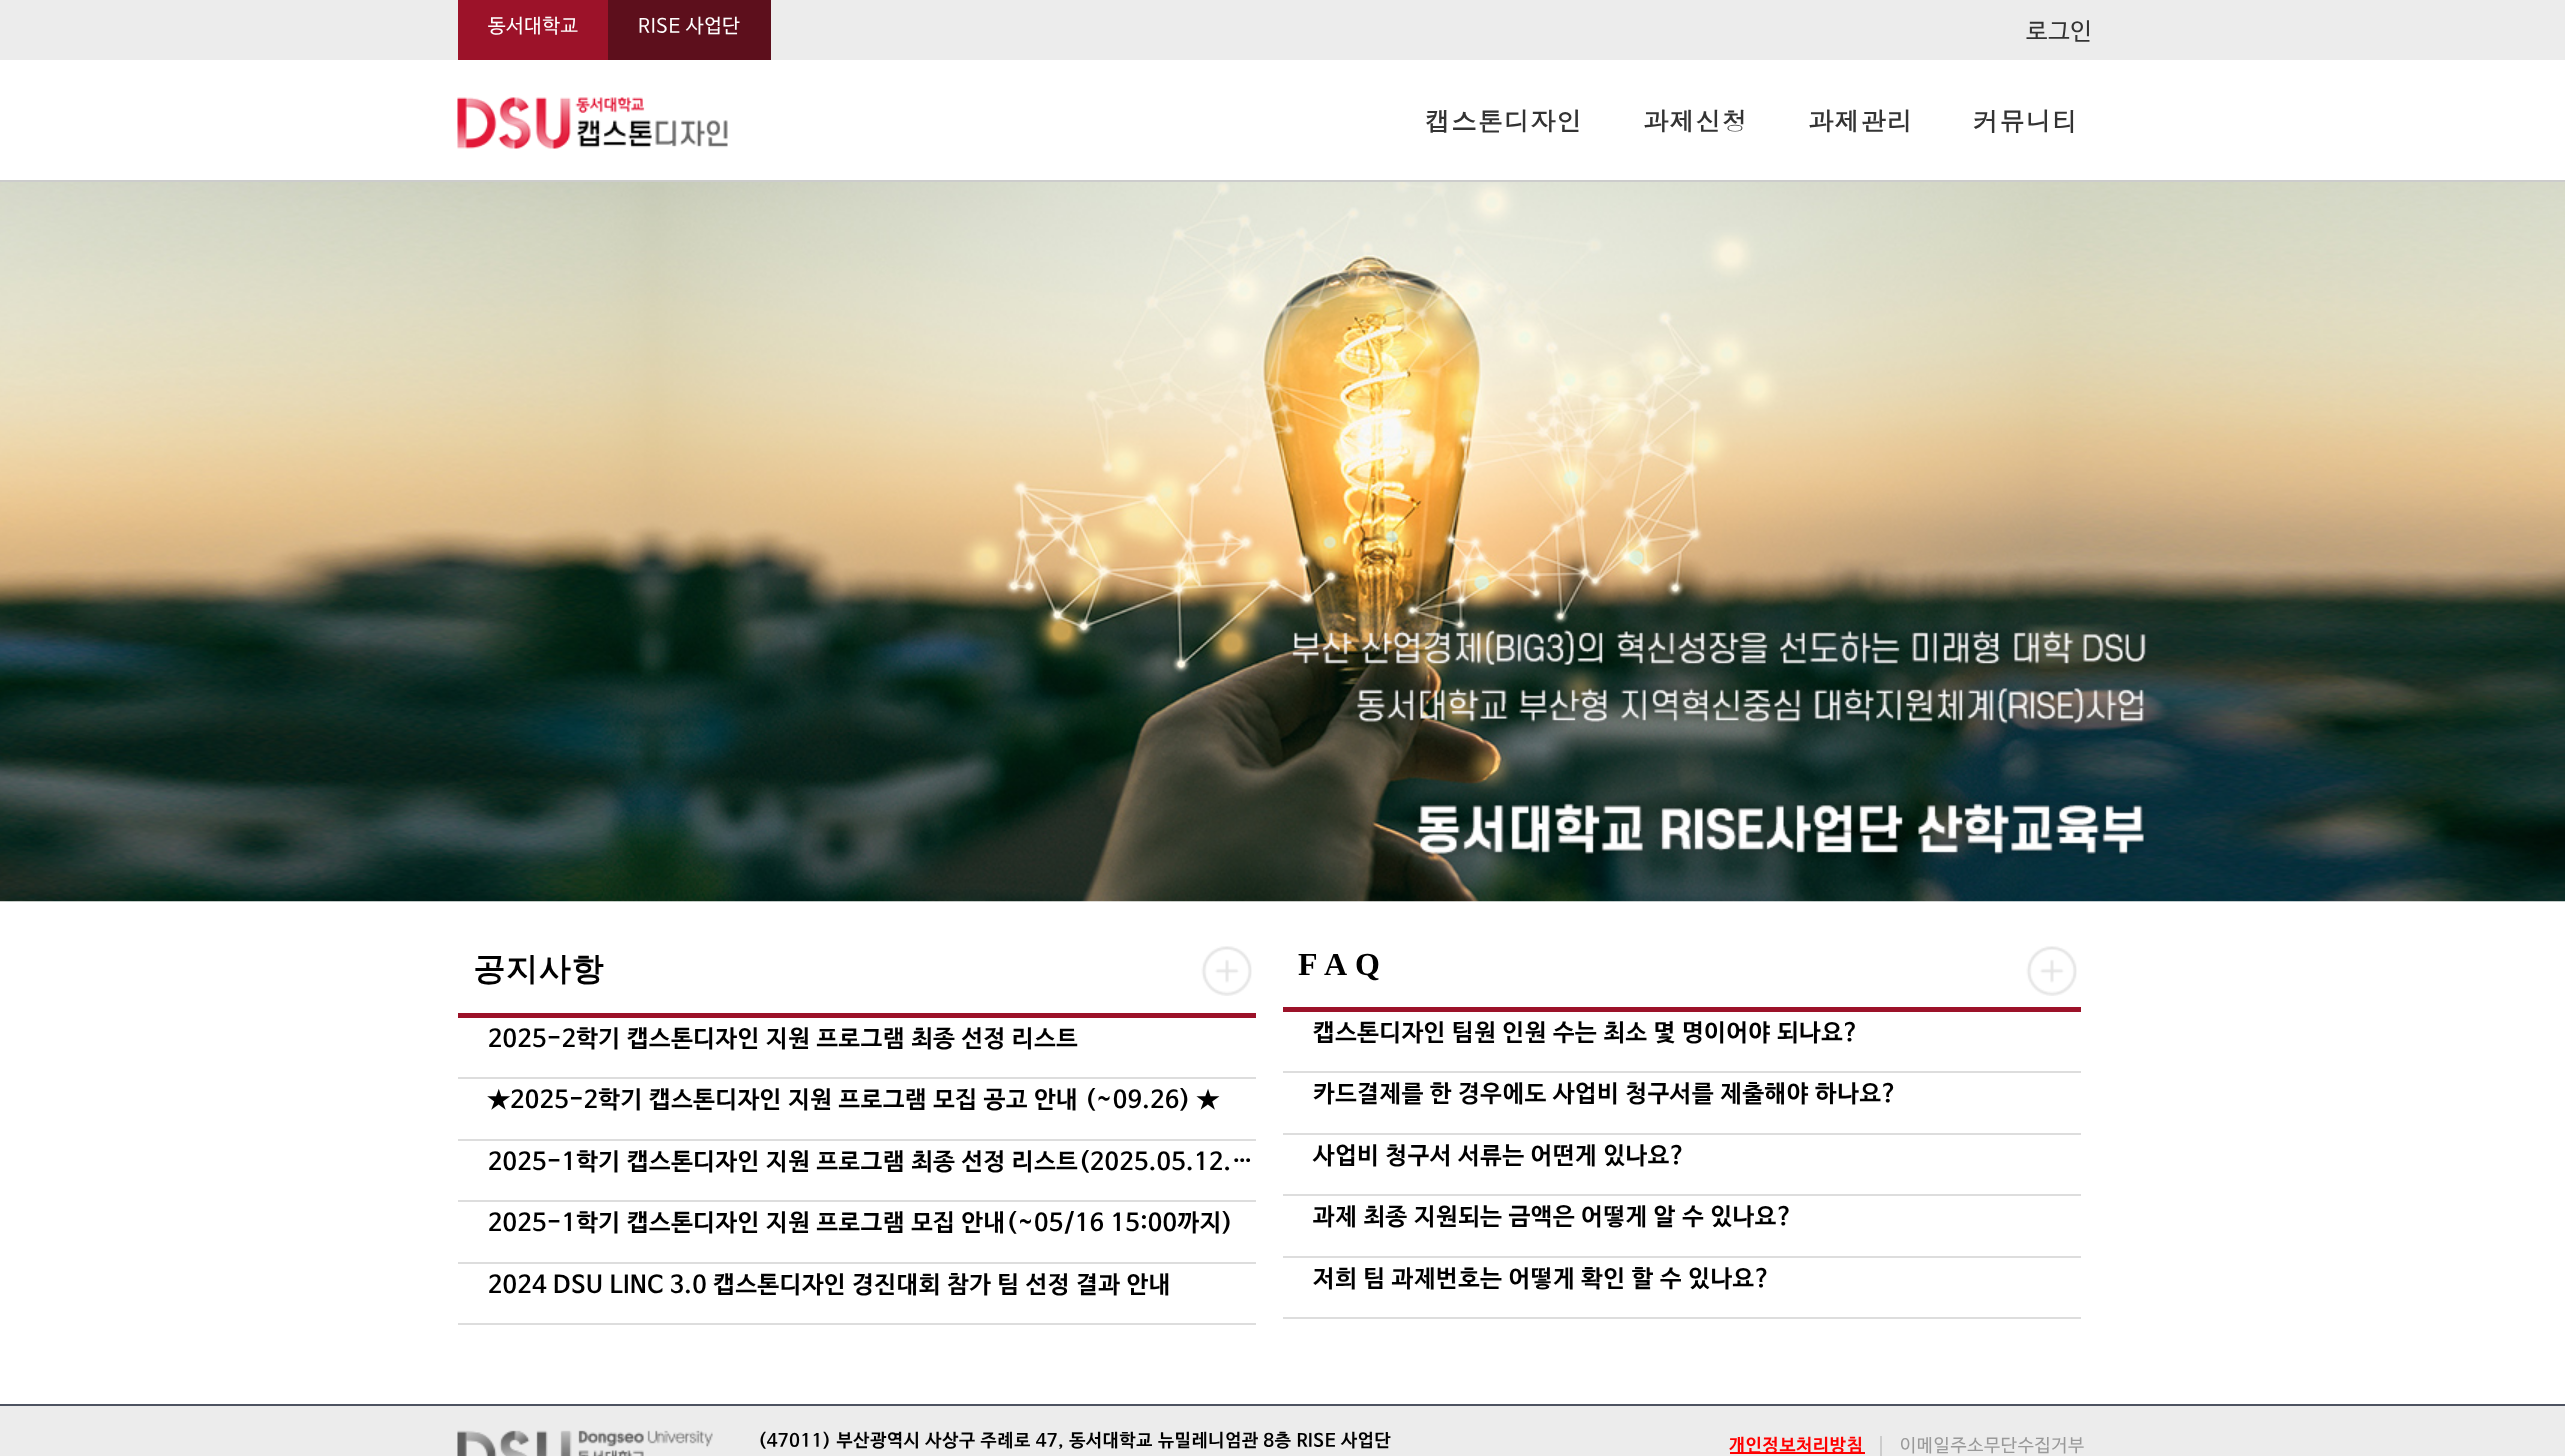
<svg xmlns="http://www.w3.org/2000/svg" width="2565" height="1456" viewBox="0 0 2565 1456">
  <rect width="100%" height="100%" fill="#ffffff"/>
  <rect x="0" y="0" width="2565" height="60" fill="#ececec"/>
  <rect x="458" y="0" width="150" height="60" fill="#9c1229"/>
  <text x="488" y="32" font-family="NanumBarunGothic" font-size="19.5" letter-spacing="0.75" fill="#ffffff">동서대학교</text>
  <rect x="608" y="0" width="163" height="60" fill="#5d0f1c"/>
  <text x="638" y="32" font-family="NanumBarunGothic" font-size="19.5" letter-spacing="0.75" fill="#ffffff">RISE 사업단</text>
  <text x="2026" y="39" font-family="NanumBarunGothic" font-size="24" letter-spacing="0.75" fill="#333333">로그인</text>
  <rect x="0" y="180" width="2565" height="2" fill="#cccccc"/>
  <image x="457" y="97" width="271" height="52" href="img1.png"/>
  <text x="1425" y="131" font-family="Dotum" font-size="25.5" font-weight="bold" letter-spacing="0.75" fill="#333333">캡스톤디자인</text>
  <text x="1643" y="131" font-family="Dotum" font-size="25.5" font-weight="bold" letter-spacing="0.75" fill="#333333">과제신청</text>
  <text x="1808" y="131" font-family="Dotum" font-size="25.5" font-weight="bold" letter-spacing="0.75" fill="#333333">과제관리</text>
  <text x="1973" y="131" font-family="Dotum" font-size="25.5" font-weight="bold" letter-spacing="0.75" fill="#333333">커뮤니티</text>
  <image x="0" y="182" width="2565" height="720" href="img2.png"/>
  <text x="473" y="980" font-family="WenQuanYi Zen Hei" font-size="32" font-weight="bold" letter-spacing="0.75" fill="#000000">공지사항</text>
  <image x="1201" y="946" width="51" height="50" href="img3.png"/>
  <rect x="458" y="1013" width="798" height="5" fill="#9c1229"/>
  <rect x="458" y="1077" width="798" height="2" fill="#dddddd"/>
  <text x="488" y="1046" font-family="NanumBarunGothic" font-size="24" font-weight="bold" letter-spacing="0.75" fill="#000000">2025-2학기 캡스톤디자인 지원 프로그램 최종 선정 리스트</text>
  <rect x="458" y="1139" width="798" height="2" fill="#dddddd"/>
  <text x="488" y="1107" font-family="NanumBarunGothic" font-size="24" font-weight="bold" letter-spacing="0.75" fill="#000000">★2025-2학기 캡스톤디자인 지원 프로그램 모집 공고 안내 (~09.26) ★</text>
  <rect x="458" y="1200" width="798" height="2" fill="#dddddd"/>
  <text x="488" y="1169" font-family="NanumBarunGothic" font-size="24" font-weight="bold" letter-spacing="0.75" fill="#000000">2025-1학기 캡스톤디자인 지원 프로그램 최종 선정 리스트(2025.05.12.…</text>
  <rect x="458" y="1262" width="798" height="2" fill="#dddddd"/>
  <text x="488" y="1230" font-family="NanumBarunGothic" font-size="24" font-weight="bold" letter-spacing="0.75" fill="#000000">2025-1학기 캡스톤디자인 지원 프로그램 모집 안내(~05/16 15:00까지)</text>
  <rect x="458" y="1323" width="798" height="2" fill="#dddddd"/>
  <text x="488" y="1292" font-family="NanumBarunGothic" font-size="24" font-weight="bold" letter-spacing="0.75" fill="#000000">2024 DSU LINC 3.0 캡스톤디자인 경진대회 참가 팀 선정 결과 안내</text>
  <text x="1298" y="975" font-family="Liberation Serif" font-size="32" font-weight="bold" letter-spacing="0.75" fill="#000000">F A Q</text>
  <image x="2026" y="946" width="51" height="50" href="img4.png"/>
  <rect x="1283" y="1007" width="798" height="5" fill="#9c1229"/>
  <rect x="1283" y="1071" width="798" height="2" fill="#dddddd"/>
  <text x="1313" y="1040" font-family="NanumBarunGothic" font-size="24" font-weight="bold" letter-spacing="0.75" fill="#000000">캡스톤디자인 팀원 인원 수는 최소 몇 명이어야 되나요?</text>
  <rect x="1283" y="1133" width="798" height="2" fill="#dddddd"/>
  <text x="1313" y="1101" font-family="NanumBarunGothic" font-size="24" font-weight="bold" letter-spacing="0.75" fill="#000000">카드결제를 한 경우에도 사업비 청구서를 제출해야 하나요?</text>
  <rect x="1283" y="1194" width="798" height="2" fill="#dddddd"/>
  <text x="1313" y="1163" font-family="NanumBarunGothic" font-size="24" font-weight="bold" letter-spacing="0.75" fill="#000000">사업비 청구서 서류는 어떤게 있나요?</text>
  <rect x="1283" y="1256" width="798" height="2" fill="#dddddd"/>
  <text x="1313" y="1224" font-family="NanumBarunGothic" font-size="24" font-weight="bold" letter-spacing="0.75" fill="#000000">과제 최종 지원되는 금액은 어떻게 알 수 있나요?</text>
  <rect x="1283" y="1317" width="798" height="2" fill="#dddddd"/>
  <text x="1313" y="1286" font-family="NanumBarunGothic" font-size="24" font-weight="bold" letter-spacing="0.75" fill="#000000">저희 팀 과제번호는 어떻게 확인 할 수 있나요?</text>
  <rect x="0" y="1406" width="2565" height="50" fill="#ececec"/>
  <rect x="0" y="1404" width="2565" height="2" fill="#4d5361"/>
  <image x="457" y="1430" width="256" height="26" href="img5.png"/>
  <text x="758" y="1446" font-family="NanumBarunGothic" font-size="18" font-weight="bold" letter-spacing="0.75" fill="#000000">(47011) 부산광역시 사상구 주례로 47, 동서대학교 뉴밀레니엄관 8층 RISE 사업단</text>
  <rect x="1730" y="1452" width="135" height="2" fill="#ff0000"/>
  <text x="1729" y="1451" font-family="NanumBarunGothic" font-size="18" font-weight="bold" letter-spacing="0.75" fill="#ff0000">개인정보처리방침</text>
  <rect x="1880" y="1436" width="2" height="20" fill="#cccccc"/>
  <text x="1900" y="1451" font-family="NanumBarunGothic" font-size="18" letter-spacing="0.75" fill="#999999">이메일주소무단수집거부</text>
</svg>
